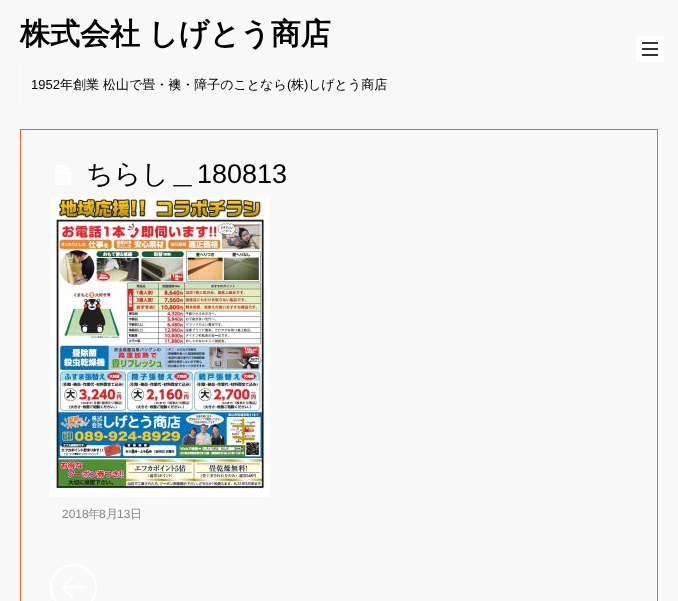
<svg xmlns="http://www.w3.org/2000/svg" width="678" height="601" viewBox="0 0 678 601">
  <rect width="100%" height="100%" fill="#f8f8f8"/>
  <text x="20" y="44" word-spacing="-1" font-family="WenQuanYi Zen Hei" font-size="30" font-weight="bold" fill="#000000">株式会社 しげとう商店</text>
  <rect x="20" y="61" width="1" height="48" fill="#fcfcfc"/>
  <text x="31" y="89" font-family="Liberation Sans" font-size="13" fill="#000000">1952</text>
  <text x="60" y="89" font-family="WenQuanYi Zen Hei" font-size="13" font-weight="500" fill="#000000">年創業 松山で畳・襖・障子のことなら</text>
  <text x="287" y="89" font-family="Liberation Sans" font-size="13" fill="#000000">(</text>
  <text x="291" y="89" font-family="WenQuanYi Zen Hei" font-size="13" font-weight="500" fill="#000000">株</text>
  <text x="304" y="89" font-family="Liberation Sans" font-size="13" fill="#000000">)</text>
  <text x="308" y="89" font-family="WenQuanYi Zen Hei" font-size="13" font-weight="500" fill="#000000">しげとう商店</text>
  <rect x="642" y="44" width="16" height="10" fill="#ffffff"/>
  <rect x="642" y="54" width="16" height="2" fill="#333333"/>
  <rect x="639" y="39" width="22" height="20" fill="none" stroke="#ffffff" stroke-width="6"/>
  <rect x="642" y="42" width="16" height="2" fill="#333333"/>
  <rect x="642" y="48" width="16" height="2" fill="#333333"/>
  <rect x="20.5" y="129.5" width="637" height="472" fill="none" stroke="#f26522"/>
  <image x="55" y="165" width="16" height="20" href="img1.png"/>
  <text x="86" y="183" font-family="WenQuanYi Zen Hei" font-size="27" font-weight="500" fill="#000000">ちらし＿</text>
  <text x="197" y="183" font-family="Liberation Sans" font-size="27" fill="#000000">180813</text>
  <image x="50" y="197" width="220" height="300" href="img2.png"/>
  <text x="62" y="518" font-family="Liberation Sans" font-size="12" fill="#888888">2018</text>
  <text x="88" y="518" font-family="WenQuanYi Zen Hei" font-size="12" font-weight="500" fill="#888888">年</text>
  <text x="99" y="518" font-family="Liberation Sans" font-size="12" fill="#888888">8</text>
  <text x="106" y="518" font-family="WenQuanYi Zen Hei" font-size="12" font-weight="500" fill="#888888">月</text>
  <text x="117" y="518" font-family="Liberation Sans" font-size="12" fill="#888888">13</text>
  <text x="130" y="518" font-family="WenQuanYi Zen Hei" font-size="12" font-weight="500" fill="#888888">日</text>
  <circle cx="73.5" cy="587.5" r="22.5" fill="none" stroke="#ffffff" stroke-width="2"/>
  <image x="62" y="575" width="23" height="24" href="img3.png"/>
</svg>
